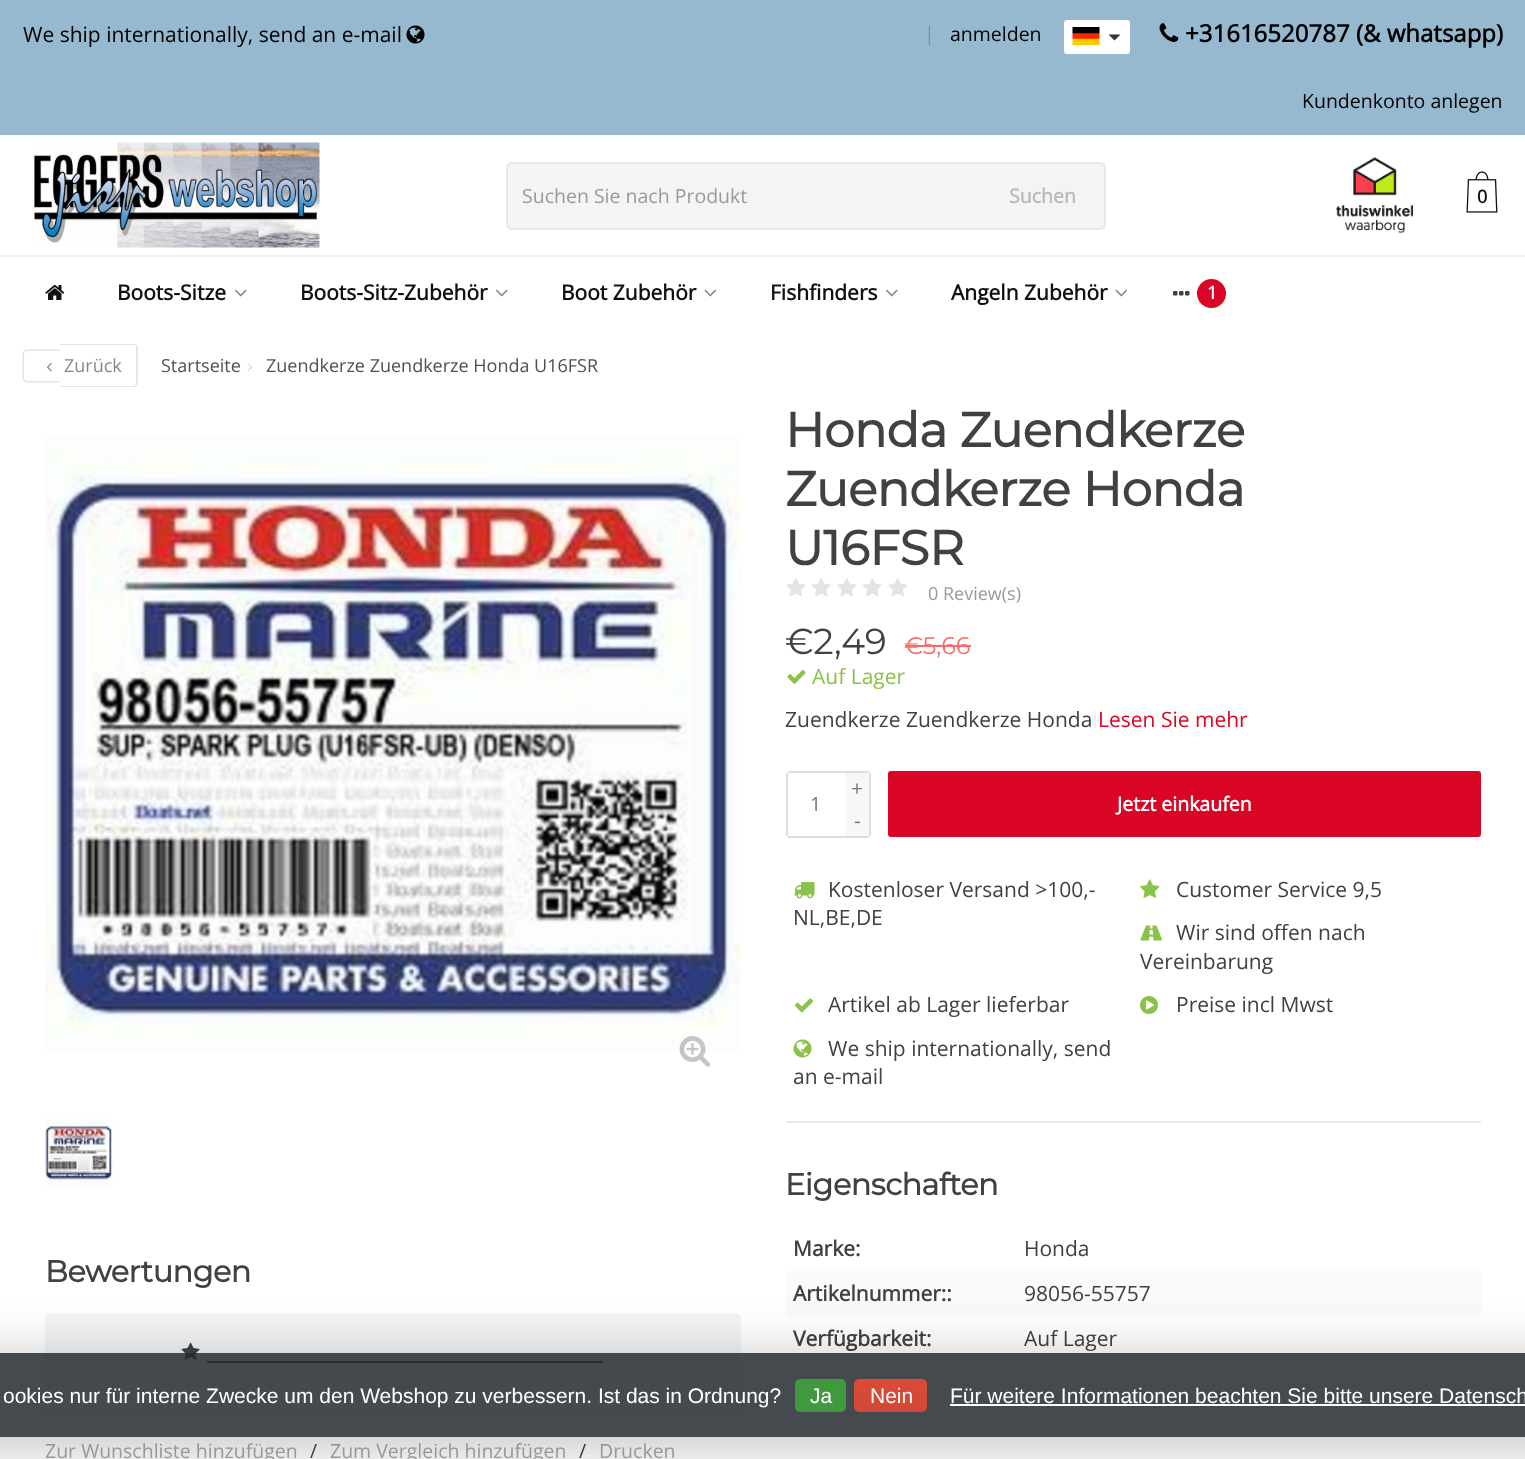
<svg xmlns="http://www.w3.org/2000/svg" width="1525" height="1459" viewBox="0 0 1525 1459">
  <defs>
    <clipPath id="clip1"><path d="M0 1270H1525V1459H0ZM-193 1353H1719C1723.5 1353 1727 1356.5 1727 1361V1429C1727 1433.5 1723.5 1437 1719 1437H-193C-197.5 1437-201 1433.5-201 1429V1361C-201 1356.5-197.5 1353-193 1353Z" clip-rule="evenodd"/></clipPath>
    <filter id="blur1" x="-50%" y="-200%" width="200%" height="500%"><feGaussianBlur stdDeviation="30"/></filter>
    <linearGradient id="g1" gradientUnits="userSpaceOnUse" x1="891" y1="1379" x2="891" y2="1412"><stop offset="0" stop-color="#dc4a38"/><stop offset="1" stop-color="#d14836"/></linearGradient>
  </defs>
  <rect width="100%" height="100%" fill="#ffffff"/>
  <rect x="0" y="0" width="1525" height="135" fill="#96b9d0"/>
  <text x="23" y="42" font-family="Open Sans" font-size="21" fill="#000000">We ship internationally, send an e-mail</text>
  <image x="406" y="25" width="19" height="19" href="img1.png"/>
  <rect x="1065" y="21" width="64" height="32" rx="2" fill="#ffffff" stroke="#ffffff" stroke-width="2"/>
  <image x="1072" y="27" width="28" height="18" href="img2.png"/>
  <path d="M1108.5 34.5H1120.5L1114.5 40.5Z" fill="#333333"/>
  <image x="1159" y="23" width="20" height="19" href="img3.png"/>
  <text x="1185" y="42" font-family="Open Sans" font-size="24" font-weight="bold" fill="#000000">+31616520787 (&amp; whatsapp)</text>
  <text x="924" y="41" font-family="Open Sans" font-size="19.5" fill="#7894a6">|</text>
  <text x="950" y="41" font-family="Open Sans" font-size="19.5" fill="#000000">anmelden</text>
  <text x="1302" y="108" font-family="Open Sans" font-size="19.5" fill="#000000">Kundenkonto anlegen</text>
  <image x="32" y="142" width="288" height="106" href="img4.png"/>
  <rect x="506" y="162" width="600" height="68" rx="6" fill="#f3f4f5"/>
  <rect x="507" y="163" width="598" height="66" rx="5" fill="none" stroke="#dddddd" stroke-opacity="0.5" stroke-width="2"/>
  <text x="522" y="203" font-family="Open Sans" font-size="19.5" fill="#999999">Suchen Sie nach Produkt</text>
  <text x="1009" y="203" font-family="Open Sans" font-size="19.5" font-weight="bold" fill="#bbbbbb">Suchen</text>
  <image x="1336" y="157" width="77" height="76" href="img5.png"/>
  <image x="1466" y="171" width="32" height="42" href="img6.png"/>
  <text x="1477" y="203" font-family="Open Sans" font-size="18" font-weight="bold" fill="#111111">0</text>
  <image x="45" y="285" width="20" height="15" href="img7.png"/>
  <text x="117" y="300" font-family="Open Sans" font-size="21" font-weight="bold" fill="#111111">Boots-Sitze</text>
  <image x="235" y="289" width="12" height="8" href="img8.png"/>
  <text x="300" y="300" font-family="Open Sans" font-size="21" font-weight="bold" fill="#111111">Boots-Sitz-Zubehör</text>
  <image x="496" y="289" width="12" height="8" href="img8.png"/>
  <text x="561" y="300" font-family="Open Sans" font-size="21" font-weight="bold" fill="#111111">Boot Zubehör</text>
  <image x="704" y="289" width="12" height="8" href="img9.png"/>
  <text x="770" y="300" font-family="Open Sans" font-size="21" font-weight="bold" fill="#111111">Fishfinders</text>
  <image x="886" y="289" width="12" height="8" href="img8.png"/>
  <text x="951" y="300" font-family="Open Sans" font-size="21" font-weight="bold" fill="#111111">Angeln Zubehör</text>
  <image x="1115" y="289" width="12" height="8" href="img9.png"/>
  <image x="1173" y="291" width="17" height="5" href="img10.png"/>
  <circle cx="1211.5" cy="293.5" r="14.5" fill="#da0525"/>
  <text x="1207" y="299" font-family="Open Sans" font-size="18" font-weight="bold" fill="#ffffff">1</text>
  <rect x="0" y="255" width="1525" height="2" fill="#eeeeee"/>
  <path d="M27 349.5H60V382.5H27C24.5 382.5 22.5 380.5 22.5 378V354C22.5 351.5 24.5 349.5 27 349.5ZM27 351H60V381H27C25.5 381 24 379.5 24 378V354C24 352.5 25.5 351 27 351Z" fill="#e5e5e5" fill-rule="evenodd"/>
  <path d="M60 344H134C136 344 138 346 138 348V382C138 385 136 387 134 387H60ZM60 345H134C135 345 136 346 136 348V382C136 384 135 386 134 386H60Z" fill="#e5e5e5" fill-rule="evenodd"/>
  <image x="46" y="363" width="6" height="9" href="img11.png"/>
  <text x="64" y="372" font-family="Open Sans" font-size="18" fill="#888888">Zurück</text>
  <text x="161" y="372" font-family="Open Sans" font-size="18" fill="#505050">Startseite</text>
  <image x="247" y="363" width="6" height="9" href="img12.png"/>
  <text x="266" y="372" font-family="Open Sans" font-size="18" fill="#505050">Zuendkerze Zuendkerze Honda U16FSR</text>
  <image x="45" y="437" width="696" height="615" href="img13.png"/>
  <image x="679" y="1036" width="32" height="31" href="img14.png"/>
  <image x="45" y="1119" width="68" height="68" href="img15.png"/>
  <text x="45" y="1282" font-family="Montserrat" font-size="30.25" font-weight="bold" letter-spacing="-0.4" fill="#414141">Bewertungen</text>
  <rect x="45" y="1313" width="696" height="78" rx="5" fill="#f3f4f5"/>
  <image x="181" y="1342" width="19" height="18" href="img16.png"/>
  <rect x="207" y="1361" width="396" height="2" fill="#414141"/>
  <rect x="45" y="1413" width="696" height="2" fill="#eaeaea"/>
  <text x="45" y="1458" font-family="Open Sans" font-size="19.5" fill="#aaaaaa">Zur Wunschliste hinzufügen</text>
  <text x="310" y="1458" font-family="Open Sans" font-size="19.5" fill="#414141">/</text>
  <text x="330" y="1458" font-family="Open Sans" font-size="19.5" fill="#aaaaaa">Zum Vergleich hinzufügen</text>
  <text x="579" y="1458" font-family="Open Sans" font-size="19.5" fill="#414141">/</text>
  <text x="599" y="1458" font-family="Open Sans" font-size="19.5" fill="#aaaaaa">Drucken</text>
  <text x="785" y="447" font-family="Montserrat" font-size="48.5" font-weight="bold" letter-spacing="-0.4" fill="#414141">Honda Zuendkerze</text>
  <text x="785" y="506" font-family="Montserrat" font-size="48.5" font-weight="bold" letter-spacing="-0.4" fill="#414141">Zuendkerze Honda</text>
  <text x="785" y="565" font-family="Montserrat" font-size="48.5" font-weight="bold" letter-spacing="-0.4" fill="#414141">U16FSR</text>
  <image x="786" y="578" width="20" height="19" href="img17.png"/>
  <image x="811" y="578" width="20" height="19" href="img18.png"/>
  <image x="837" y="578" width="20" height="19" href="img17.png"/>
  <image x="862" y="578" width="20" height="19" href="img18.png"/>
  <image x="888" y="578" width="20" height="19" href="img17.png"/>
  <text x="928" y="600" font-family="Open Sans" font-size="18" fill="#999999">0 Review(s)</text>
  <text x="785" y="654" font-family="Montserrat" font-size="36" font-weight="100" fill="#414141">€2,49</text>
  <text x="904" y="654" font-family="Montserrat" font-size="24" font-weight="100" fill="#fa6b6b">€5,66</text>
  <rect x="905" y="645" width="66" height="2" fill="#fa6b6b"/>
  <image x="787" y="669" width="19" height="15" href="img19.png"/>
  <text x="812" y="684" font-family="Open Sans" font-size="21" fill="#8bc34a">Auf Lager</text>
  <text x="785" y="727" font-family="Open Sans" font-size="21" fill="#414141">Zuendkerze Zuendkerze Honda</text>
  <text x="1098" y="727" font-family="Open Sans" font-size="21" fill="#da0525">Lesen Sie mehr</text>
  <rect x="788" y="771" width="58" height="2" fill="#dddddd"/>
  <rect x="788" y="836" width="58" height="2" fill="#dddddd"/>
  <rect x="786" y="773" width="2" height="63" fill="#dddddd"/>
  <text x="810" y="811" font-family="Open Sans" font-size="19.5" fill="#777777">1</text>
  <path d="M846 771H867C868.5 771 870 772.5 870 774V834C870 835.5 868.5 837 867 837H846Z" fill="#f7f7f7"/>
  <rect x="846" y="771" width="23" height="2" fill="#dddddd"/>
  <rect x="869" y="773" width="2" height="63" fill="#dddddd"/>
  <rect x="846" y="836" width="23" height="2" fill="#dddddd"/>
  <text x="851" y="796" font-family="Open Sans" font-size="21" fill="#777777">+</text>
  <text x="854" y="828" font-family="Open Sans" font-size="21" fill="#777777">-</text>
  <rect x="889" y="772" width="591" height="64" rx="2" fill="#da0525" stroke="#da0525" stroke-width="2"/>
  <text x="1117" y="811" font-family="Open Sans" font-size="19.5" font-weight="bold" fill="#ffffff">Jetzt einkaufen</text>
  <image x="794" y="882" width="21" height="17" href="img20.png"/>
  <text x="828" y="897" font-family="Open Sans" font-size="21" fill="#414141">Kostenloser Versand &gt;100,-</text>
  <text x="793" y="925" font-family="Open Sans" font-size="21" fill="#414141">NL,BE,DE</text>
  <image x="1140" y="879" width="20" height="19" href="img21.png"/>
  <text x="1176" y="897" font-family="Open Sans" font-size="21" fill="#414141">Customer Service 9,5</text>
  <image x="1140" y="925" width="22" height="16" href="img22.png"/>
  <text x="1176" y="940" font-family="Open Sans" font-size="21" fill="#414141">Wir sind offen nach</text>
  <text x="1140" y="969" font-family="Open Sans" font-size="21" fill="#414141">Vereinbarung</text>
  <image x="794" y="998" width="20" height="15" href="img23.png"/>
  <text x="828" y="1012" font-family="Open Sans" font-size="21" fill="#414141">Artikel ab Lager lieferbar</text>
  <image x="1140" y="996" width="18" height="18" href="img24.png"/>
  <text x="1176" y="1012" font-family="Open Sans" font-size="21" fill="#414141">Preise incl Mwst</text>
  <image x="793" y="1039" width="19" height="19" href="img25.png"/>
  <text x="828" y="1056" font-family="Open Sans" font-size="21" fill="#414141">We ship internationally, send</text>
  <text x="793" y="1084" font-family="Open Sans" font-size="21" fill="#414141">an e-mail</text>
  <rect x="786" y="1121" width="695" height="2" fill="#eaeaea"/>
  <text x="785" y="1195" font-family="Montserrat" font-size="30.25" font-weight="bold" letter-spacing="-0.4" fill="#414141">Eigenschaften</text>
  <text x="793" y="1256" font-family="Open Sans" font-size="21" font-weight="bold" fill="#414141">Marke:</text>
  <text x="1024" y="1256" font-family="Open Sans" font-size="21" fill="#414141">Honda</text>
  <rect x="786" y="1271" width="695" height="45" fill="#f9fafb"/>
  <text x="793" y="1301" font-family="Open Sans" font-size="21" font-weight="bold" fill="#414141">Artikelnummer::</text>
  <text x="1024" y="1301" font-family="Open Sans" font-size="21" fill="#414141">98056-55757</text>
  <text x="793" y="1346" font-family="Open Sans" font-size="21" font-weight="bold" fill="#414141">Verfügbarkeit:</text>
  <text x="1024" y="1346" font-family="Open Sans" font-size="21" fill="#414141">Auf Lager</text>
  <g clip-path="url(#clip1)">
    <rect x="-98" y="1361" width="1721" height="84" rx="8" fill="#000000" fill-opacity="0.25" filter="url(#blur1)"/>
  </g>
  <rect x="0" y="1353" width="1525" height="84" fill="#242a30" fill-opacity="0.85"/>
  <text x="3" y="1403" font-family="Liberation Sans" font-size="21" fill="#ffffff">ookies nur für interne Zwecke um den Webshop zu verbessern. Ist das in Ordnung?</text>
  <rect x="795" y="1379" width="51" height="33" rx="5" fill="#40983f"/>
  <text x="810" y="1403" font-family="Liberation Sans" font-size="21" fill="#ffffff">Ja</text>
  <rect x="854" y="1379" width="73" height="33" rx="5" fill="url(#g1)"/>
  <text x="870" y="1403" font-family="Liberation Sans" font-size="21" fill="#ffffff">Nein</text>
  <text x="950" y="1403" font-family="Liberation Sans" font-size="21" fill="#ffffff">Für weitere Informationen beachten Sie bitte unsere Datensch</text>
  <rect x="950" y="1404" width="575" height="2" fill="#ffffff"/>
</svg>
